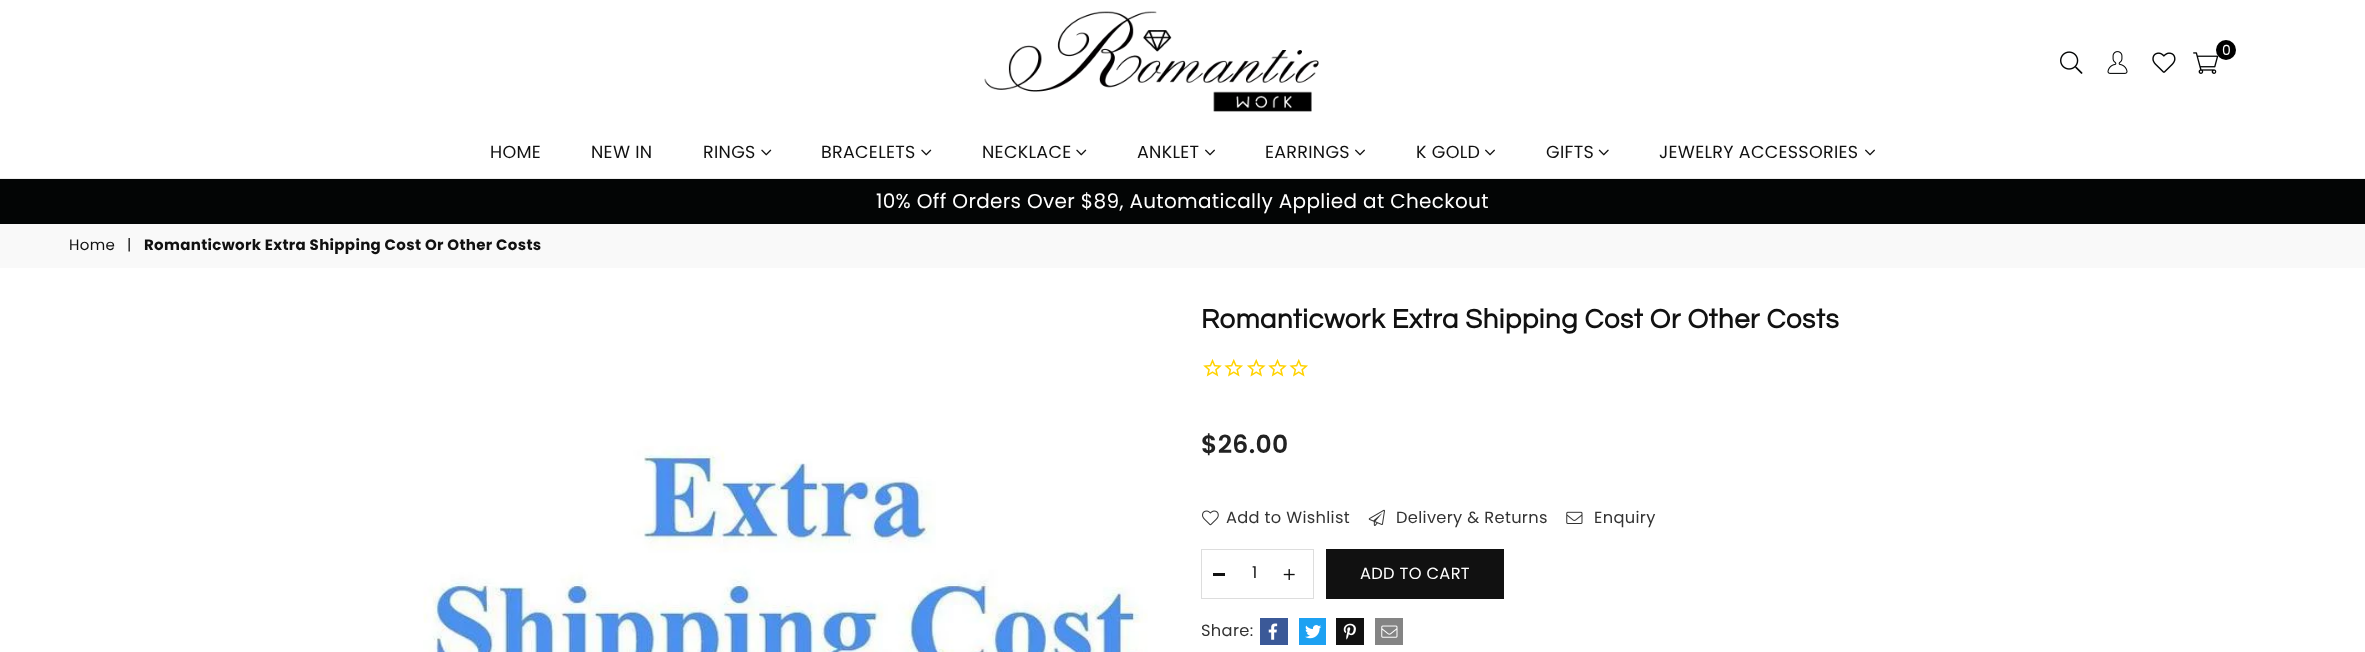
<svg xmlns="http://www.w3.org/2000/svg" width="2365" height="652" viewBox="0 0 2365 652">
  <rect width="100%" height="100%" fill="#ffffff"/>
  <rect x="0" y="178" width="2365" height="1" fill="#eeeeee"/>
  <image x="984" y="11" width="335" height="101" href="img1.png"/>
  <image x="2193" y="52" width="26" height="22" href="img2.png"/>
  <circle cx="2226" cy="50" r="10" fill="#000000"/>
  <text x="2222" y="55" font-family="Poppins" font-size="14" letter-spacing="0.33" fill="#ffffff">0</text>
  <image x="2060" y="51" width="23" height="23" href="img3.png"/>
  <image x="2107" y="51" width="21" height="23" href="img4.png"/>
  <image x="2152" y="52" width="24" height="21" href="img5.png"/>
  <text x="490" y="158" font-family="Poppins" font-size="17.5" letter-spacing="0.3" fill="#111111">HOME</text>
  <text x="591" y="158" font-family="Poppins" font-size="17.5" letter-spacing="0.3" fill="#111111">NEW IN</text>
  <text x="703" y="158" font-family="Poppins" font-size="17.5" letter-spacing="0.3" fill="#111111">RINGS</text>
  <image x="761" y="149" width="11" height="7" href="img6.png"/>
  <text x="821" y="158" font-family="Poppins" font-size="17.5" letter-spacing="0.3" fill="#111111">BRACELETS</text>
  <image x="921" y="149" width="11" height="7" href="img6.png"/>
  <text x="982" y="158" font-family="Poppins" font-size="17.5" letter-spacing="0.3" fill="#111111">NECKLACE</text>
  <image x="1076" y="149" width="11" height="7" href="img6.png"/>
  <text x="1137" y="158" font-family="Poppins" font-size="17.5" letter-spacing="0.3" fill="#111111">ANKLET</text>
  <image x="1205" y="149" width="10" height="7" href="img7.png"/>
  <text x="1265" y="158" font-family="Poppins" font-size="17.5" letter-spacing="0.3" fill="#111111">EARRINGS</text>
  <image x="1355" y="149" width="10" height="7" href="img7.png"/>
  <text x="1416" y="158" font-family="Poppins" font-size="17.5" letter-spacing="0.3" fill="#111111">K GOLD</text>
  <image x="1485" y="149" width="10" height="7" href="img7.png"/>
  <text x="1546" y="158" font-family="Poppins" font-size="17.5" letter-spacing="0.3" fill="#111111">GIFTS</text>
  <image x="1598" y="149" width="11" height="7" href="img8.png"/>
  <text x="1659" y="158" font-family="Poppins" font-size="17.5" letter-spacing="0.3" fill="#111111">JEWELRY ACCESSORIES</text>
  <image x="1865" y="149" width="10" height="7" href="img7.png"/>
  <rect x="0" y="179" width="2365" height="45" fill="#030505"/>
  <text x="876" y="208" font-family="Poppins" font-size="20" letter-spacing="0.33" fill="#ffffff">10% Off Orders Over $89, Automatically Applied at Checkout</text>
  <rect x="0" y="224" width="2365" height="44" fill="#f9f9f9"/>
  <text x="69" y="250" font-family="Poppins" font-size="15" letter-spacing="0.33" fill="#111111">Home</text>
  <text x="127" y="250" font-family="Poppins" font-size="15" letter-spacing="0.33" fill="#111111">|</text>
  <text x="144" y="250" font-family="Poppins" font-size="15" font-weight="bold" letter-spacing="0.33" fill="#111111">Romanticwork Extra Shipping Cost Or Other Costs</text>
  <image x="423" y="446" width="725" height="206" href="img9.png"/>
  <text x="1201" y="328" font-family="Questrial" font-size="27.5" font-weight="bold" letter-spacing="0.55" fill="#111111">Romanticwork Extra Shipping Cost Or Other Costs</text>
  <image x="1203" y="358" width="19" height="19" href="img10.png"/>
  <image x="1224" y="358" width="19" height="19" href="img11.png"/>
  <image x="1247" y="358" width="19" height="19" href="img12.png"/>
  <image x="1268" y="358" width="19" height="19" href="img10.png"/>
  <image x="1289" y="358" width="19" height="19" href="img11.png"/>
  <text x="1201" y="453" font-family="Poppins" font-size="25" font-weight="600" letter-spacing="0.33" fill="#222222">$26.00</text>
  <image x="1202" y="510" width="17" height="16" href="img13.png"/>
  <text x="1226" y="523" font-family="Poppins" font-size="16.25" letter-spacing="0.33" fill="#333333">Add to Wishlist</text>
  <image x="1368" y="509" width="17" height="17" href="img14.png"/>
  <text x="1396" y="523" font-family="Poppins" font-size="16.25" letter-spacing="0.33" fill="#333333">Delivery &amp; Returns</text>
  <image x="1566" y="511" width="17" height="13" href="img15.png"/>
  <text x="1594" y="523" font-family="Poppins" font-size="16.25" letter-spacing="0.33" fill="#333333">Enquiry</text>
  <rect x="1201.5" y="549.5" width="112" height="49" fill="none" stroke="#dddddd"/>
  <rect x="1213" y="573" width="12" height="3" fill="#111111"/>
  <text x="1252" y="578" font-family="Poppins" font-size="16.25" fill="#111111">1</text>
  <image x="1283" y="569" width="12" height="11" href="img16.png"/>
  <rect x="1326" y="549" width="178" height="50" fill="#111111"/>
  <text x="1360" y="579" font-family="Poppins" font-size="16.25" letter-spacing="0.33" fill="#ffffff">ADD TO CART</text>
  <text x="1201" y="636" font-family="Poppins" font-size="16.25" letter-spacing="0.33" fill="#333333">Share:</text>
  <rect x="1260" y="618" width="28" height="27" fill="#3b5998"/>
  <image x="1268" y="623" width="10" height="17" href="img17.png"/>
  <rect x="1299" y="618" width="27" height="27" fill="#1da1f2"/>
  <image x="1305" y="625" width="17" height="14" href="img18.png"/>
  <rect x="1336" y="618" width="28" height="27" fill="#111111"/>
  <image x="1343" y="623" width="13" height="17" href="img19.png"/>
  <rect x="1375" y="618" width="28" height="27" fill="#848484"/>
  <image x="1381" y="625" width="17" height="13" href="img20.png"/>
</svg>
